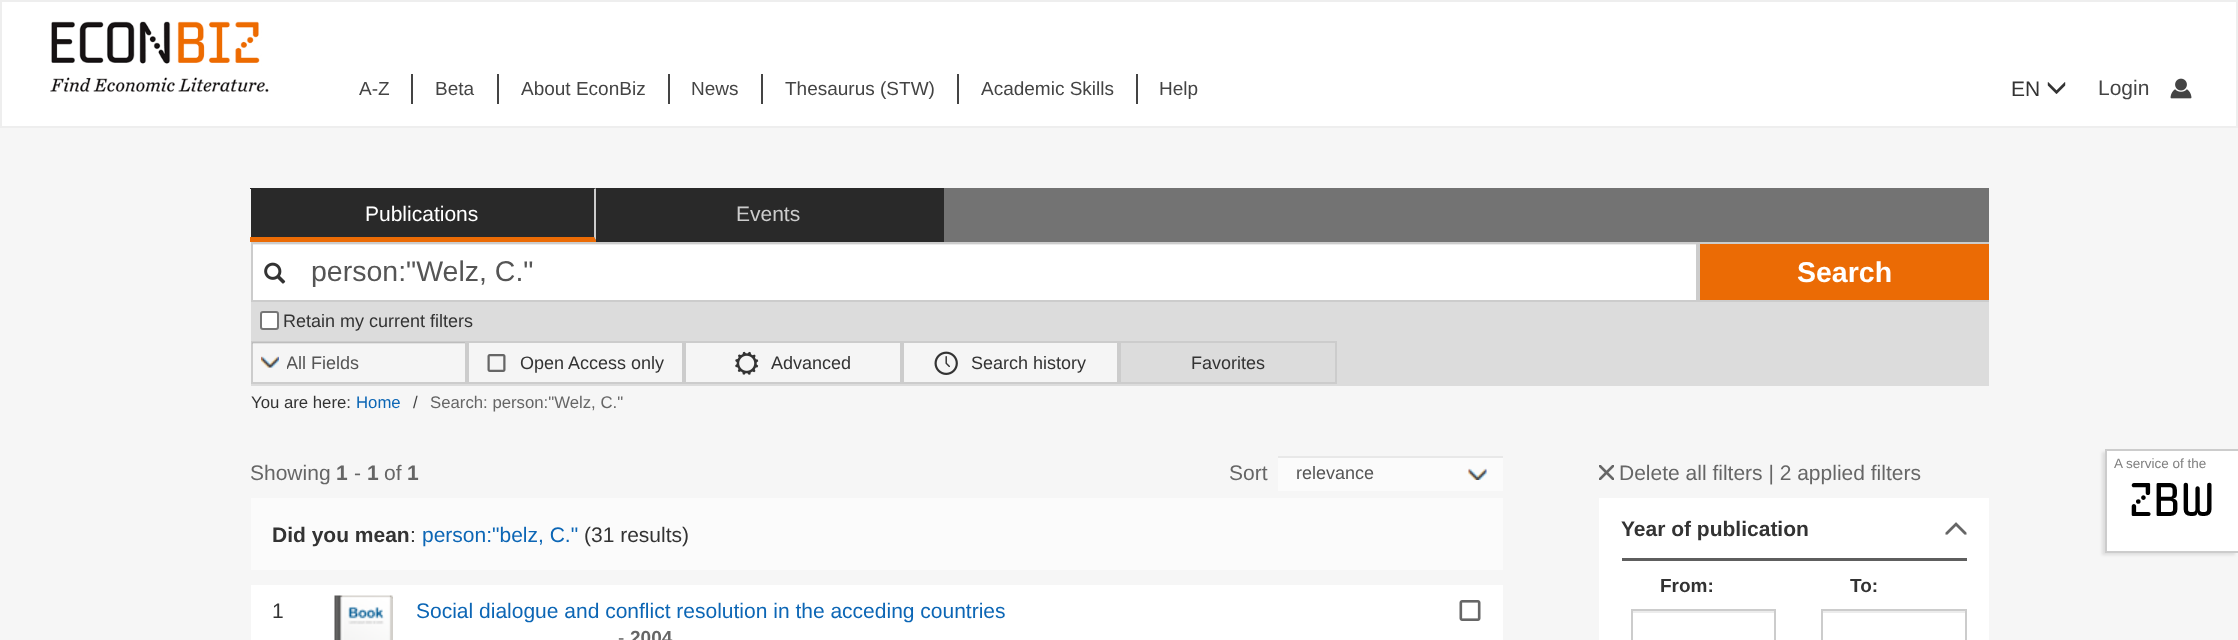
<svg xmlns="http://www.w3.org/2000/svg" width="2238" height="640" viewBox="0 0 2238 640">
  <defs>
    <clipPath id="clip1"><rect x="287" y="351" width="160" height="26"/></clipPath>
    <filter id="blur1" x="-50%" y="-200%" width="200%" height="500%"><feGaussianBlur stdDeviation="1.5"/></filter>
  </defs>
  <rect width="100%" height="100%" fill="#f6f6f6"/>
  <rect x="1" y="1" width="2236" height="126" fill="#ffffff" stroke="#eeeeee" stroke-width="2"/>
  <image x="50" y="21" width="219" height="72" href="img1.png"/>
  <text x="359" y="95" font-family="Liberation Sans" font-size="19" fill="#444444">A-Z</text>
  <rect x="411" y="74" width="2" height="30" fill="#444444"/>
  <text x="435" y="95" font-family="Liberation Sans" font-size="19" fill="#444444">Beta</text>
  <rect x="497" y="74" width="2" height="30" fill="#444444"/>
  <text x="521" y="95" font-family="Liberation Sans" font-size="19" fill="#444444">About EconBiz</text>
  <rect x="668" y="74" width="2" height="30" fill="#444444"/>
  <text x="691" y="95" font-family="Liberation Sans" font-size="19" fill="#444444">News</text>
  <rect x="761" y="74" width="2" height="30" fill="#444444"/>
  <text x="785" y="95" font-family="Liberation Sans" font-size="19" fill="#444444">Thesaurus (STW)</text>
  <rect x="957" y="74" width="2" height="30" fill="#444444"/>
  <text x="981" y="95" font-family="Liberation Sans" font-size="19" fill="#444444">Academic Skills</text>
  <rect x="1136" y="74" width="2" height="30" fill="#444444"/>
  <text x="1159" y="95" font-family="Liberation Sans" font-size="19" fill="#444444">Help</text>
  <text x="2011" y="96" font-family="Liberation Sans" font-size="21" fill="#333333">EN</text>
  <image x="2047" y="82" width="19" height="12" href="img2.png"/>
  <text x="2098" y="95" font-family="Liberation Sans" font-size="21" fill="#444444">Login</text>
  <image x="2170" y="78" width="22" height="21" href="img3.png"/>
  <rect x="594" y="188" width="1395" height="54" fill="#737373"/>
  <rect x="251" y="189" width="343" height="48" fill="#292929"/>
  <path d="M250 188H597L594 189H250Z" fill="#292929"/>
  <path d="M597 188V242L594 237V189Z" fill="#cccccc"/>
  <path d="M597 242H250V237H594Z" fill="#eb6b05"/>
  <text x="365" y="221" font-family="Liberation Sans" font-size="21" fill="#ffffff">Publications</text>
  <rect x="596" y="190" width="345" height="47" fill="#292929"/>
  <rect x="596" y="188" width="348" height="2" fill="#292929"/>
  <rect x="941" y="188" width="3" height="54" fill="#292929"/>
  <rect x="596" y="237" width="348" height="5" fill="#292929"/>
  <text x="736" y="221" font-family="Liberation Sans" font-size="21" fill="#cccccc">Events</text>
  <rect x="253" y="245" width="1443" height="55" fill="#ffffff"/>
  <rect x="252" y="244" width="1445" height="1" fill="#ececec"/>
  <rect x="252" y="243" width="1445" height="58" fill="none" stroke="#cccccc" stroke-width="2"/>
  <image x="264" y="262" width="22" height="22" href="img4.png"/>
  <text x="311" y="281" font-family="Liberation Sans" font-size="28.5" fill="#555555">person:"Welz, C."</text>
  <rect x="1700" y="244" width="289" height="56" fill="#eb6b05"/>
  <rect x="1698" y="242" width="291" height="2" fill="#cccccc"/>
  <rect x="1698" y="300" width="291" height="2" fill="#cccccc"/>
  <rect x="1698" y="242" width="2" height="60" fill="#cccccc"/>
  <text x="1797" y="282" font-family="Liberation Sans" font-size="28.5" font-weight="bold" fill="#ffffff">Search</text>
  <rect x="251" y="302" width="1738" height="84" fill="#dcdcdc"/>
  <rect x="261" y="312" width="17" height="17" rx="2" fill="#ffffff" stroke="#767676" stroke-width="2"/>
  <text x="283" y="327" font-family="Liberation Sans" font-size="18" fill="#333333">Retain my current filters</text>
  <rect x="252" y="342" width="214" height="41" fill="#f5f5f5" stroke="#cccccc" stroke-width="2"/>
  <image x="261" y="356" width="18" height="12" href="img5.png"/>
  <rect x="252" y="342" width="213" height="2" fill="#000000" fill-opacity="0.07"/>
  <g clip-path="url(#clip1)">
    <text x="286" y="369" font-family="Liberation Sans" font-size="18" fill="#555555">All Fields</text>
  </g>
  <rect x="468" y="342" width="215" height="41" fill="#f5f5f5" stroke="#cccccc" stroke-width="2"/>
  <image x="487" y="354" width="19" height="18" href="img6.png"/>
  <text x="520" y="369" font-family="Liberation Sans" font-size="18" fill="#333333">Open Access only</text>
  <rect x="685" y="342" width="216" height="41" fill="#f5f5f5" stroke="#cccccc" stroke-width="2"/>
  <image x="735" y="351" width="24" height="24" href="img7.png"/>
  <text x="771" y="369" font-family="Liberation Sans" font-size="18" fill="#333333">Advanced</text>
  <rect x="903" y="342" width="215" height="41" fill="#f5f5f5" stroke="#cccccc" stroke-width="2"/>
  <image x="934" y="351" width="24" height="24" href="img8.png"/>
  <text x="971" y="369" font-family="Liberation Sans" font-size="18" fill="#333333">Search history</text>
  <rect x="1120" y="342" width="216" height="41" fill="none" stroke="#cccccc" stroke-width="2"/>
  <text x="1191" y="369" font-family="Liberation Sans" font-size="18" fill="#333333">Favorites</text>
  <text x="251" y="408" font-family="Liberation Sans" font-size="16.75" fill="#333333">You are here:</text>
  <text x="356" y="408" font-family="Liberation Sans" font-size="16.75" fill="#0c66b5">Home</text>
  <text x="413" y="408" font-family="Liberation Sans" font-size="16.75" fill="#444444">/</text>
  <text x="430" y="408" font-family="Liberation Sans" font-size="16.75" fill="#666666">Search: person:"Welz, C."</text>
  <text x="250" y="480" font-family="Liberation Sans" font-size="21" fill="#666666">Showing</text>
  <text x="336" y="480" font-family="Liberation Sans" font-size="21" font-weight="bold" fill="#666666">1</text>
  <text x="354" y="480" font-family="Liberation Sans" font-size="21" fill="#666666">-</text>
  <text x="367" y="480" font-family="Liberation Sans" font-size="21" font-weight="bold" fill="#666666">1</text>
  <text x="384" y="480" font-family="Liberation Sans" font-size="21" fill="#666666">of</text>
  <text x="407" y="480" font-family="Liberation Sans" font-size="21" font-weight="bold" fill="#666666">1</text>
  <text x="1229" y="480" font-family="Liberation Sans" font-size="21" fill="#666666">Sort</text>
  <rect x="1278" y="458" width="225" height="33" fill="#fbfbfb"/>
  <image x="1468" y="468" width="19" height="12" href="img9.png"/>
  <rect x="1278" y="456" width="225" height="2" fill="#e8e8e8"/>
  <text x="1296" y="479" font-family="Liberation Sans" font-size="18" fill="#555555">relevance</text>
  <rect x="251" y="498" width="1252" height="72" fill="#fbfbfb"/>
  <text x="272" y="542" font-family="Liberation Sans" font-size="21" font-weight="bold" fill="#333333">Did you mean</text>
  <text x="410" y="542" font-family="Liberation Sans" font-size="21" fill="#333333">:</text>
  <text x="422" y="542" font-family="Liberation Sans" font-size="21" fill="#0c66b5">person:"belz, C."</text>
  <text x="584" y="542" font-family="Liberation Sans" font-size="21" fill="#333333">(31 results)</text>
  <rect x="251" y="585" width="1252" height="55" fill="#ffffff"/>
  <text x="272" y="618" font-family="Liberation Sans" font-size="21" fill="#333333">1</text>
  <image x="334" y="595" width="59" height="45" href="img10.png"/>
  <text x="416" y="618" font-family="Liberation Sans" font-size="21" fill="#0c66b5">Social dialogue and conflict resolution in the acceding countries</text>
  <text x="618" y="644" font-family="Liberation Sans" font-size="19" fill="#666666">-</text>
  <text x="630" y="644" font-family="Liberation Sans" font-size="19" font-weight="bold" fill="#666666">2004</text>
  <image x="1459" y="600" width="22" height="21" href="img11.png"/>
  <image x="1599" y="465" width="15" height="15" href="img12.png"/>
  <text x="1619" y="480" font-family="Liberation Sans" font-size="21" fill="#666666">Delete all filters | 2 applied filters</text>
  <rect x="1599" y="498" width="390" height="142" fill="#ffffff"/>
  <rect x="1622" y="558" width="345" height="3" fill="#5e5e5e"/>
  <text x="1621" y="536" font-family="Liberation Sans" font-size="21" font-weight="bold" fill="#333333">Year of publication</text>
  <image x="1945" y="522" width="22" height="13" href="img13.png"/>
  <text x="1660" y="592" font-family="Liberation Sans" font-size="19" font-weight="bold" fill="#333333">From:</text>
  <rect x="1632" y="611" width="143" height="2" fill="#ececec"/>
  <rect x="1632" y="610" width="143" height="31" fill="none" stroke="#cccccc" stroke-width="2"/>
  <text x="1850" y="592" font-family="Liberation Sans" font-size="19" font-weight="bold" fill="#333333">To:</text>
  <rect x="1823" y="611" width="142" height="2" fill="#ececec"/>
  <rect x="1822" y="610" width="144" height="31" fill="none" stroke="#cccccc" stroke-width="2"/>
  <rect x="2102" y="452" width="133" height="103" fill="#000000" fill-opacity="0.1" filter="url(#blur1)"/>
  <rect x="2107" y="451" width="131" height="100" fill="#ffffff"/>
  <rect x="2105" y="449" width="133" height="2" fill="#cccccc"/>
  <rect x="2105" y="551" width="133" height="2" fill="#cccccc"/>
  <rect x="2105" y="449" width="2" height="103" fill="#cccccc"/>
  <text x="2114" y="468" font-family="Liberation Sans" font-size="13.5" fill="#808080">A service of the</text>
  <text x="2129" y="516" font-family="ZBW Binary" font-size="45" fill="#000000">zbw</text>
</svg>
